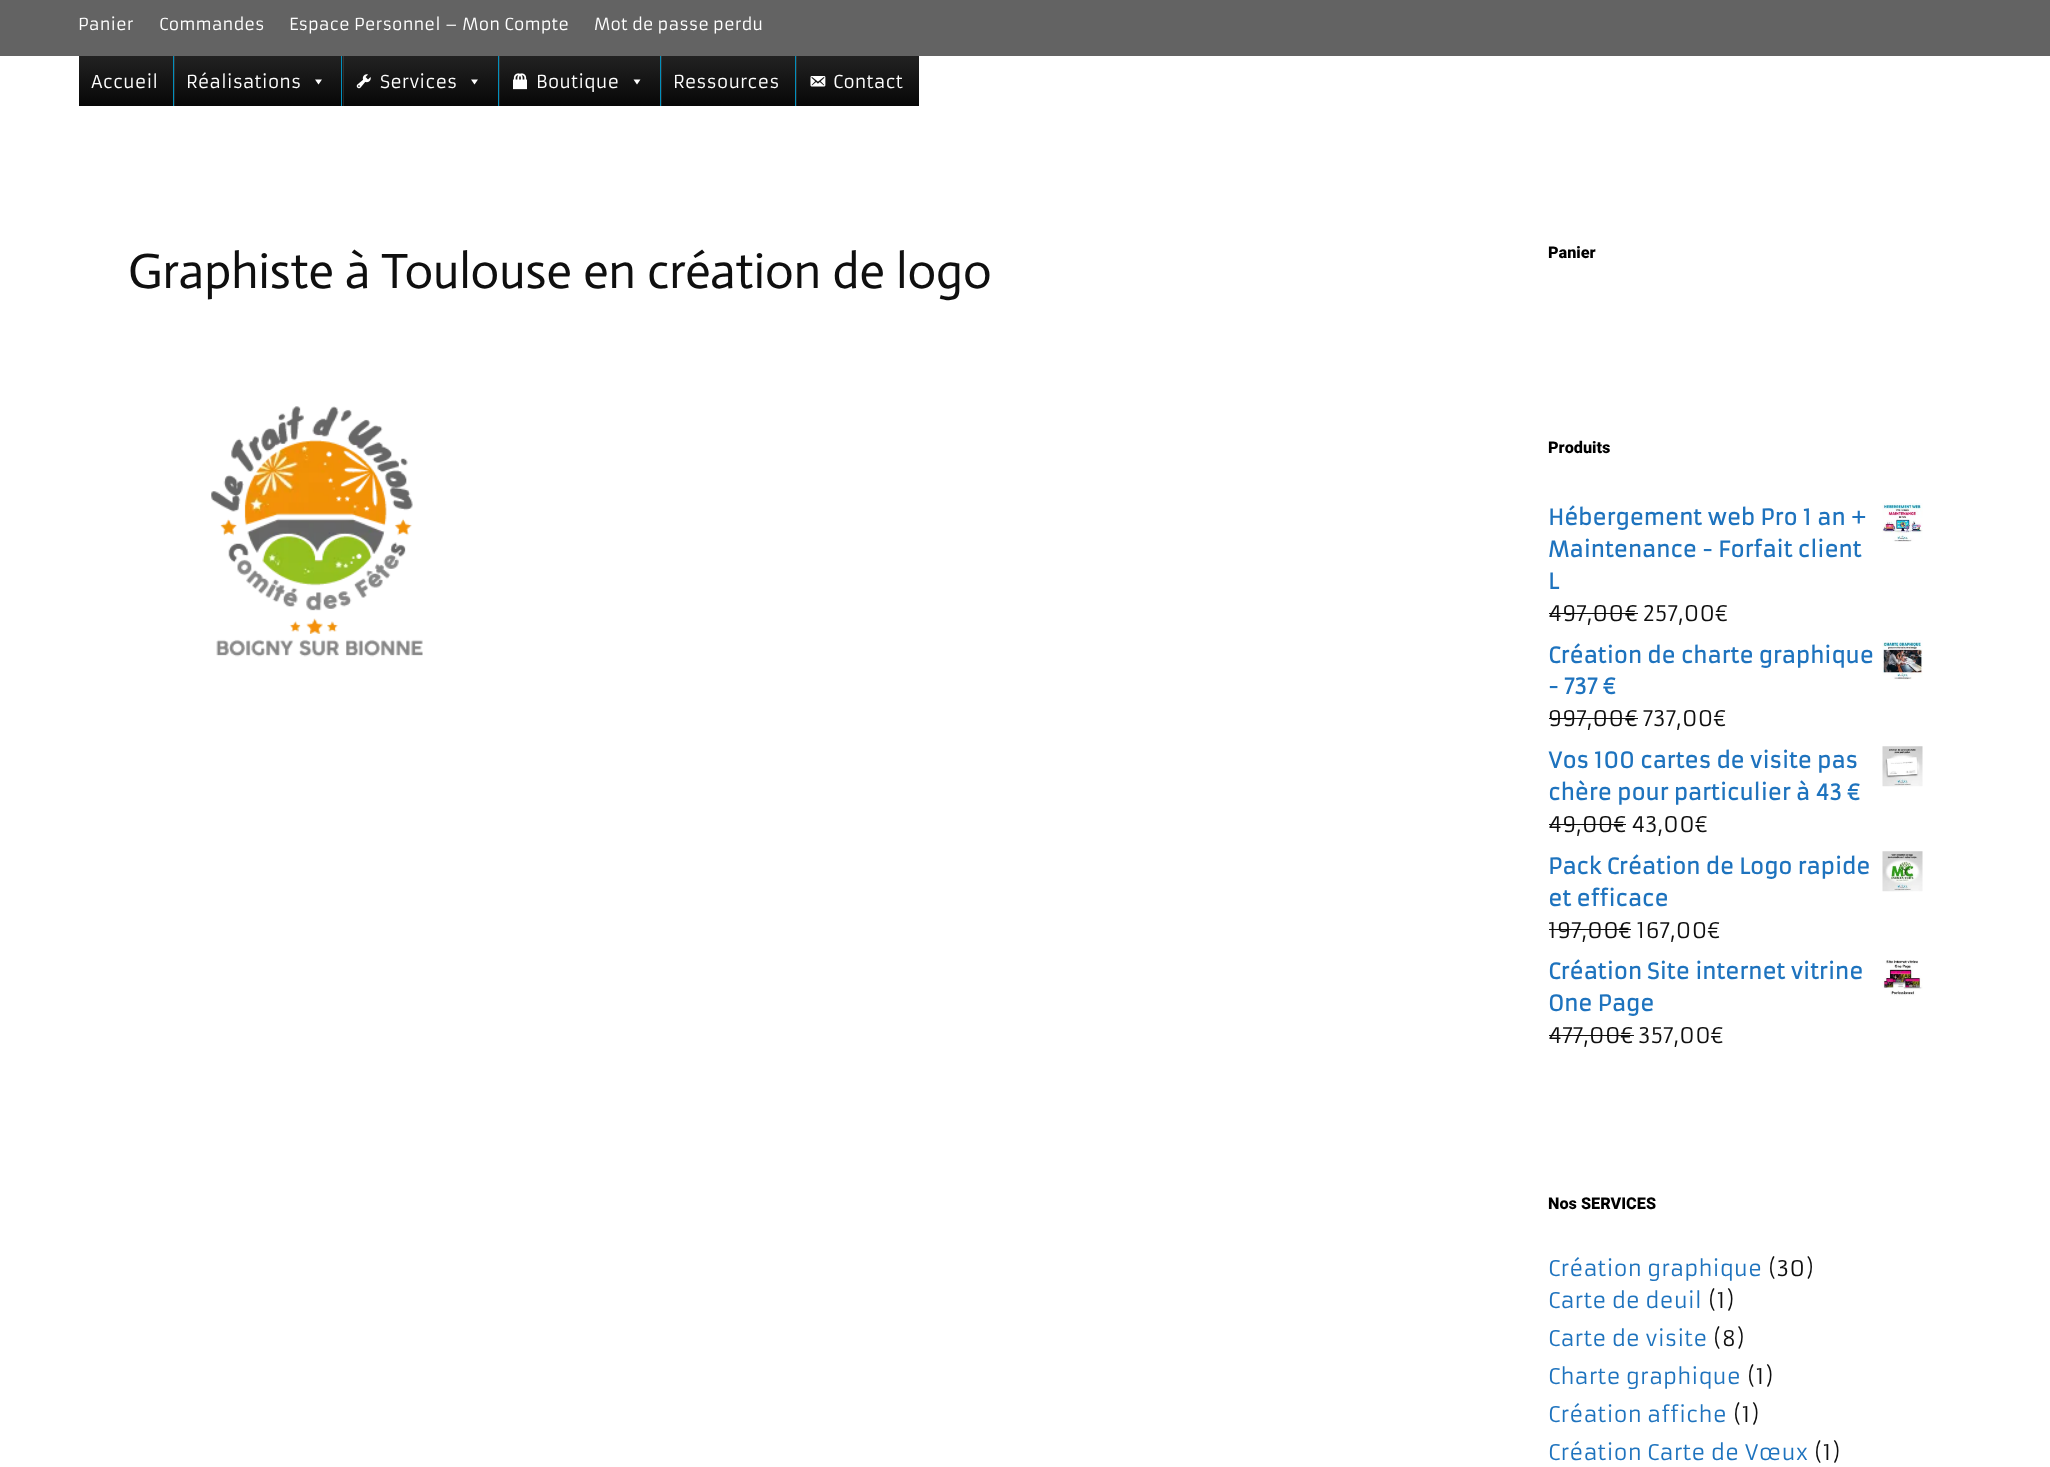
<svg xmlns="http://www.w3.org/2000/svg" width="2050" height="1467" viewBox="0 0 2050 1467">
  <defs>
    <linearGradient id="g1" gradientUnits="userSpaceOnUse" x1="499" y1="56" x2="499" y2="106"><stop offset="0" stop-color="#222222"/><stop offset="1" stop-color="#070707"/></linearGradient>
    <linearGradient id="g2" gradientUnits="userSpaceOnUse" x1="499" y1="56" x2="499" y2="106"><stop offset="0" stop-color="#383838"/><stop offset="1" stop-color="#202020"/></linearGradient>
  </defs>
  <rect width="100%" height="100%" fill="#ffffff"/>
  <rect x="0" y="0" width="2050" height="56" fill="#636363"/>
  <text x="78" y="30" font-family="Armata" font-size="16.25" fill="#ffffff">Panier</text>
  <text x="159" y="30" font-family="Armata" font-size="16.25" fill="#ffffff">Commandes</text>
  <text x="289" y="30" font-family="Armata" font-size="16.25" fill="#ffffff">Espace Personnel – Mon Compte</text>
  <text x="594" y="30" font-family="Armata" font-size="16.25" fill="#ffffff">Mot de passe perdu</text>
  <rect x="79" y="56" width="840" height="50" fill="url(#g1)"/>
  <rect x="796" y="56" width="1" height="50" fill="url(#g2)"/>
  <rect x="661" y="56" width="1" height="50" fill="url(#g2)"/>
  <rect x="499" y="56" width="1" height="50" fill="url(#g2)"/>
  <rect x="343" y="56" width="1" height="50" fill="url(#g2)"/>
  <rect x="174" y="56" width="1" height="50" fill="url(#g2)"/>
  <text x="91" y="88" font-family="Armata" font-size="17.5" fill="#ffffff">Accueil</text>
  <rect x="173" y="56" width="1" height="50" fill="#028fbd"/>
  <text x="186" y="88" font-family="Armata" font-size="17.5" fill="#ffffff">Réalisations</text>
  <path d="M322 79.5L318.5 84.5L315 79.5Z" fill="#ffffff"/>
  <rect x="341" y="56" width="1" height="50" fill="#028fbd"/>
  <image x="356" y="74" width="15" height="15" href="img1.png"/>
  <text x="380" y="88" font-family="Armata" font-size="17.5" fill="#ffffff">Services</text>
  <path d="M478 79.5L474.5 84.5L471 79.5Z" fill="#ffffff"/>
  <rect x="498" y="56" width="1" height="50" fill="#028fbd"/>
  <image x="513" y="73" width="14" height="17" href="img2.png"/>
  <text x="536" y="88" font-family="Armata" font-size="17.5" fill="#ffffff">Boutique</text>
  <path d="M640.5 79.5L637 84.5L633.5 79.5Z" fill="#ffffff"/>
  <rect x="660" y="56" width="1" height="50" fill="#028fbd"/>
  <text x="673" y="88" font-family="Armata" font-size="17.5" fill="#ffffff">Ressources</text>
  <rect x="795" y="56" width="1" height="50" fill="#028fbd"/>
  <image x="810" y="76" width="16" height="11" href="img3.png"/>
  <text x="833" y="88" font-family="Armata" font-size="17.5" fill="#ffffff">Contact</text>
  <text x="128" y="288" font-family="Actor" font-size="50" fill="#0f0f0f">Graphiste à Toulouse en création de logo</text>
  <image x="211" y="406" width="212" height="251" href="img4.png"/>
  <text x="1548" y="258" font-family="Heebo" font-size="16.25" font-weight="800" fill="#000000">Panier</text>
  <text x="1548" y="453" font-family="Heebo" font-size="16.25" font-weight="800" fill="#000000">Produits</text>
  <text x="1548" y="525" font-family="Armata" font-size="21.25" font-weight="bold" fill="#1e73be">Hébergement web Pro 1 an +</text>
  <image x="1882" y="503" width="41" height="39" href="img5.png"/>
  <text x="1548" y="557" font-family="Armata" font-size="21.25" font-weight="bold" fill="#1e73be">Maintenance - Forfait client</text>
  <text x="1548" y="589" font-family="Armata" font-size="21.25" font-weight="bold" fill="#1e73be">L</text>
  <text x="1548" y="621" font-family="Armata" font-size="21.25" fill="#0f0f0f">497,00</text>
  <rect x="1549" y="613" width="76" height="1" fill="#0f0f0f"/>
  <text x="1625" y="621" font-family="Armata" font-size="21.25" fill="#0f0f0f">€ 257,00€</text>
  <rect x="1625" y="613" width="13" height="1" fill="#0f0f0f"/>
  <text x="1548" y="663" font-family="Armata" font-size="21.25" font-weight="bold" fill="#1e73be">Création de charte graphique</text>
  <image x="1882" y="640" width="41" height="40" href="img6.png"/>
  <text x="1548" y="694" font-family="Armata" font-size="21.25" font-weight="bold" fill="#1e73be">- 737 €</text>
  <text x="1548" y="726" font-family="Armata" font-size="21.25" fill="#0f0f0f">997,00</text>
  <rect x="1549" y="718" width="76" height="1" fill="#0f0f0f"/>
  <text x="1625" y="726" font-family="Armata" font-size="21.25" fill="#0f0f0f">€ 737,00€</text>
  <rect x="1625" y="718" width="13" height="1" fill="#0f0f0f"/>
  <text x="1548" y="768" font-family="Armata" font-size="21.25" font-weight="bold" fill="#1e73be">Vos 100 cartes de visite pas</text>
  <image x="1882" y="746" width="41" height="41" href="img7.png"/>
  <text x="1548" y="800" font-family="Armata" font-size="21.25" font-weight="bold" fill="#1e73be">chère pour particulier à 43 €</text>
  <text x="1548" y="832" font-family="Armata" font-size="21.25" fill="#0f0f0f">49,00€ 43,00€</text>
  <rect x="1549" y="824" width="77" height="1" fill="#0f0f0f"/>
  <text x="1548" y="874" font-family="Armata" font-size="21.25" font-weight="bold" fill="#1e73be">Pack Création de Logo rapide</text>
  <image x="1882" y="851" width="41" height="41" href="img8.png"/>
  <text x="1548" y="906" font-family="Armata" font-size="21.25" font-weight="bold" fill="#1e73be">et efficace</text>
  <text x="1548" y="938" font-family="Armata" font-size="21.25" fill="#0f0f0f">197,00€ 167,00€</text>
  <rect x="1549" y="929" width="82" height="1" fill="#0f0f0f"/>
  <text x="1548" y="979" font-family="Armata" font-size="21.25" font-weight="bold" fill="#1e73be">Création Site internet vitrine</text>
  <image x="1882" y="960" width="41" height="36" href="img9.png"/>
  <text x="1548" y="1011" font-family="Armata" font-size="21.25" font-weight="bold" fill="#1e73be">One Page</text>
  <text x="1548" y="1043" font-family="Armata" font-size="21.25" fill="#0f0f0f">477,00€ 357,00€</text>
  <rect x="1549" y="1035" width="85" height="1" fill="#0f0f0f"/>
  <text x="1548" y="1209" font-family="Heebo" font-size="16.25" font-weight="800" fill="#000000">Nos SERVICES</text>
  <text x="1548" y="1276" font-family="Armata" font-size="21.25" fill="#1e73be">Création graphique</text>
  <text x="1768" y="1276" font-family="Armata" font-size="21.25" fill="#0f0f0f">(30)</text>
  <text x="1548" y="1308" font-family="Armata" font-size="21.25" fill="#1e73be">Carte de deuil</text>
  <text x="1708" y="1308" font-family="Armata" font-size="21.25" fill="#0f0f0f">(1)</text>
  <text x="1548" y="1346" font-family="Armata" font-size="21.25" fill="#1e73be">Carte de visite</text>
  <text x="1713" y="1346" font-family="Armata" font-size="21.25" fill="#0f0f0f">(8)</text>
  <text x="1548" y="1384" font-family="Armata" font-size="21.25" fill="#1e73be">Charte graphique</text>
  <text x="1747" y="1384" font-family="Armata" font-size="21.25" fill="#0f0f0f">(1)</text>
  <text x="1548" y="1422" font-family="Armata" font-size="21.25" fill="#1e73be">Création affiche</text>
  <text x="1733" y="1422" font-family="Armata" font-size="21.25" fill="#0f0f0f">(1)</text>
  <text x="1548" y="1460" font-family="Armata" font-size="21.25" fill="#1e73be">Création Carte de Vœux</text>
  <text x="1814" y="1460" font-family="Armata" font-size="21.25" fill="#0f0f0f">(1)</text>
</svg>
